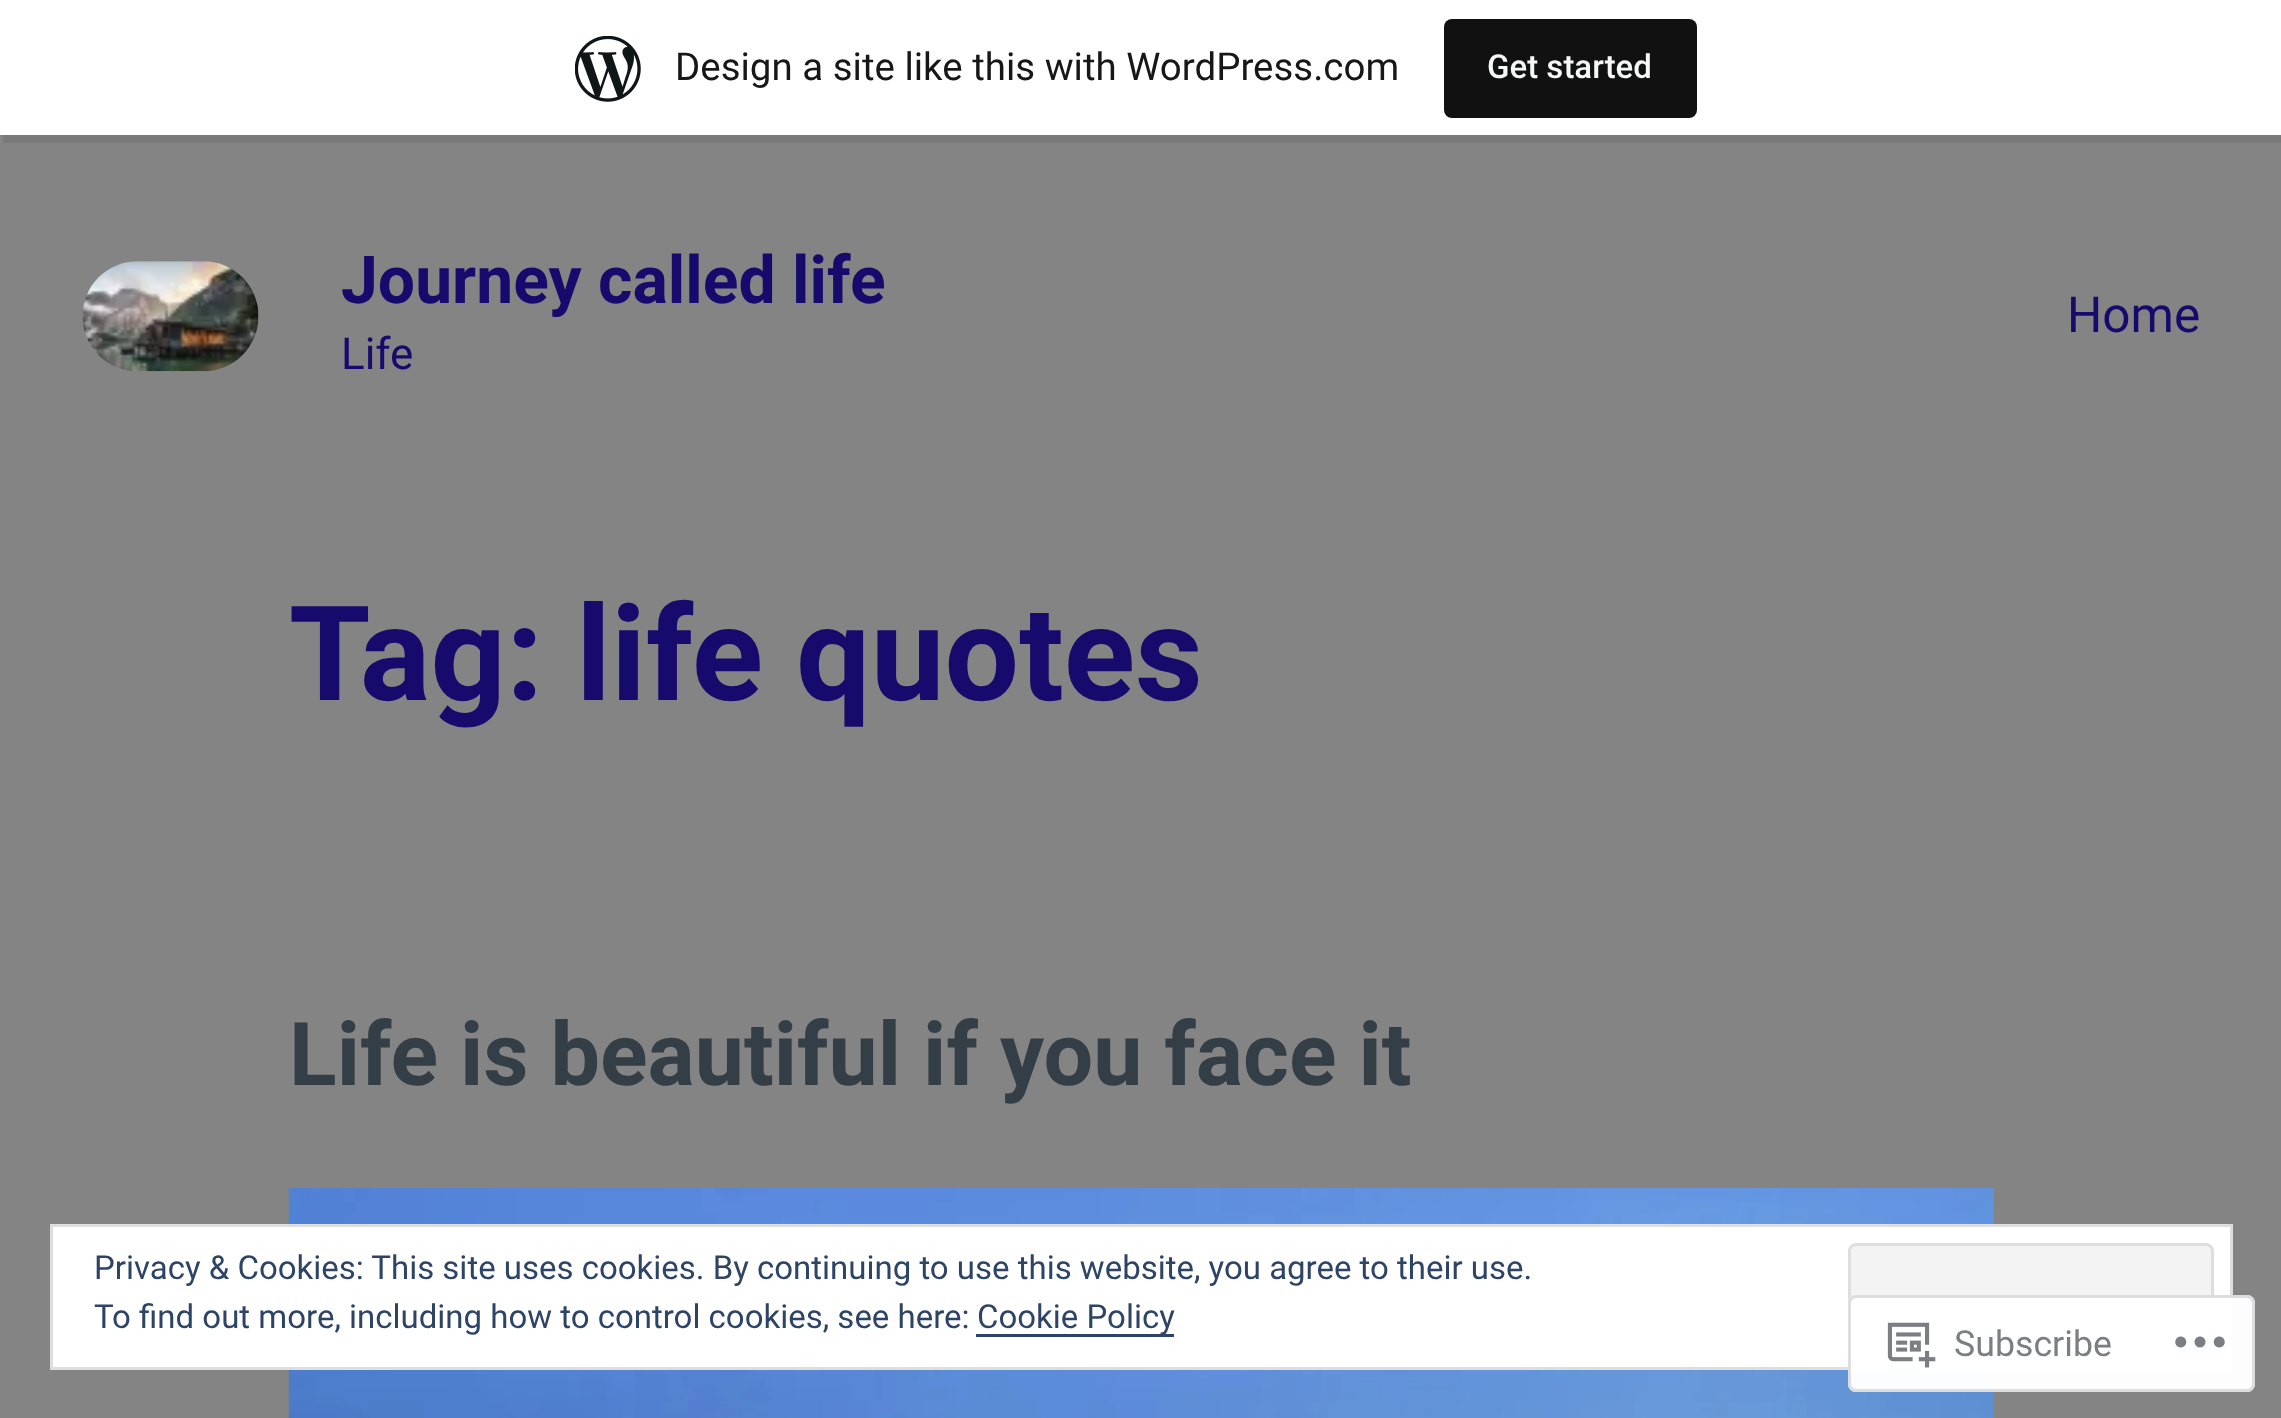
<svg xmlns="http://www.w3.org/2000/svg" width="2281" height="1418" viewBox="0 0 2281 1418">
  <rect width="100%" height="100%" fill="#848484"/>
  <path d="M3 135V143H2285V8H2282V135Z" fill="#000000" fill-opacity="0.08"/>
  <rect x="0" y="0" width="2281" height="135" fill="#ffffff"/>
  <image x="575" y="36" width="66" height="66" href="img1.png"/>
  <text x="675" y="80" font-family="Roboto" font-size="38.5" fill="#171717">Design a site like this with WordPress.com</text>
  <rect x="1444" y="19" width="253" height="99" rx="8" fill="#111111"/>
  <text x="1487" y="78" font-family="Roboto" font-size="33" font-weight="500" fill="#f6f7f7">Get started</text>
  <image x="82" y="261" width="177" height="111" href="img2.png"/>
  <text x="341" y="303" font-family="Roboto" font-size="66" font-weight="bold" fill="#160a6d">Journey called life</text>
  <text x="341" y="369" font-family="Roboto" font-size="44" fill="#160a6d">Life</text>
  <text x="2067" y="332" font-family="Roboto" font-size="49.5" fill="#160a6d">Home</text>
  <text x="289" y="700" font-family="Roboto" font-size="132" font-weight="bold" fill="#160a6d">Tag: life quotes</text>
  <text x="289" y="1085" font-family="Roboto" font-size="88" font-weight="bold" fill="#343e47">Life is beautiful if you face it</text>
  <image x="288" y="1188" width="1706" height="230" href="img3.png"/>
  <rect x="51.5" y="1225.5" width="2180" height="143" fill="#ffffff" stroke="#dedede" stroke-width="3"/>
  <text x="94" y="1279" font-family="Roboto" font-size="33" fill="#2e4467">Privacy &amp; Cookies: This site uses cookies. By continuing to use this website, you agree to their use.</text>
  <rect x="1849.5" y="1244.5" width="363" height="104" rx="6.5" fill="#f3f3f3" stroke="#dedede" stroke-width="3"/>
  <text x="94" y="1328" font-family="Roboto" font-size="33" fill="#2e4467">To find out more, including how to control cookies, see here:</text>
  <rect x="976" y="1334" width="198" height="3" fill="#2e4467"/>
  <text x="977" y="1328" font-family="Roboto" font-size="33" fill="#2e4467">Cookie Policy</text>
  <rect x="1848" y="1295" width="407" height="97" rx="8" fill="#ffffff" fill-opacity="0.98"/>
  <rect x="1849.5" y="1296.5" width="404" height="94" rx="6.5" fill="none" stroke="#dcdcde" stroke-opacity="0.98" stroke-width="3"/>
  <image x="1887" y="1322" width="49" height="46" href="img4.png"/>
  <text x="1954" y="1356" font-family="Roboto" font-size="35.75" fill="#7b7f84">Subscribe</text>
  <image x="2175" y="1336" width="50" height="12" href="img5.png"/>
</svg>
